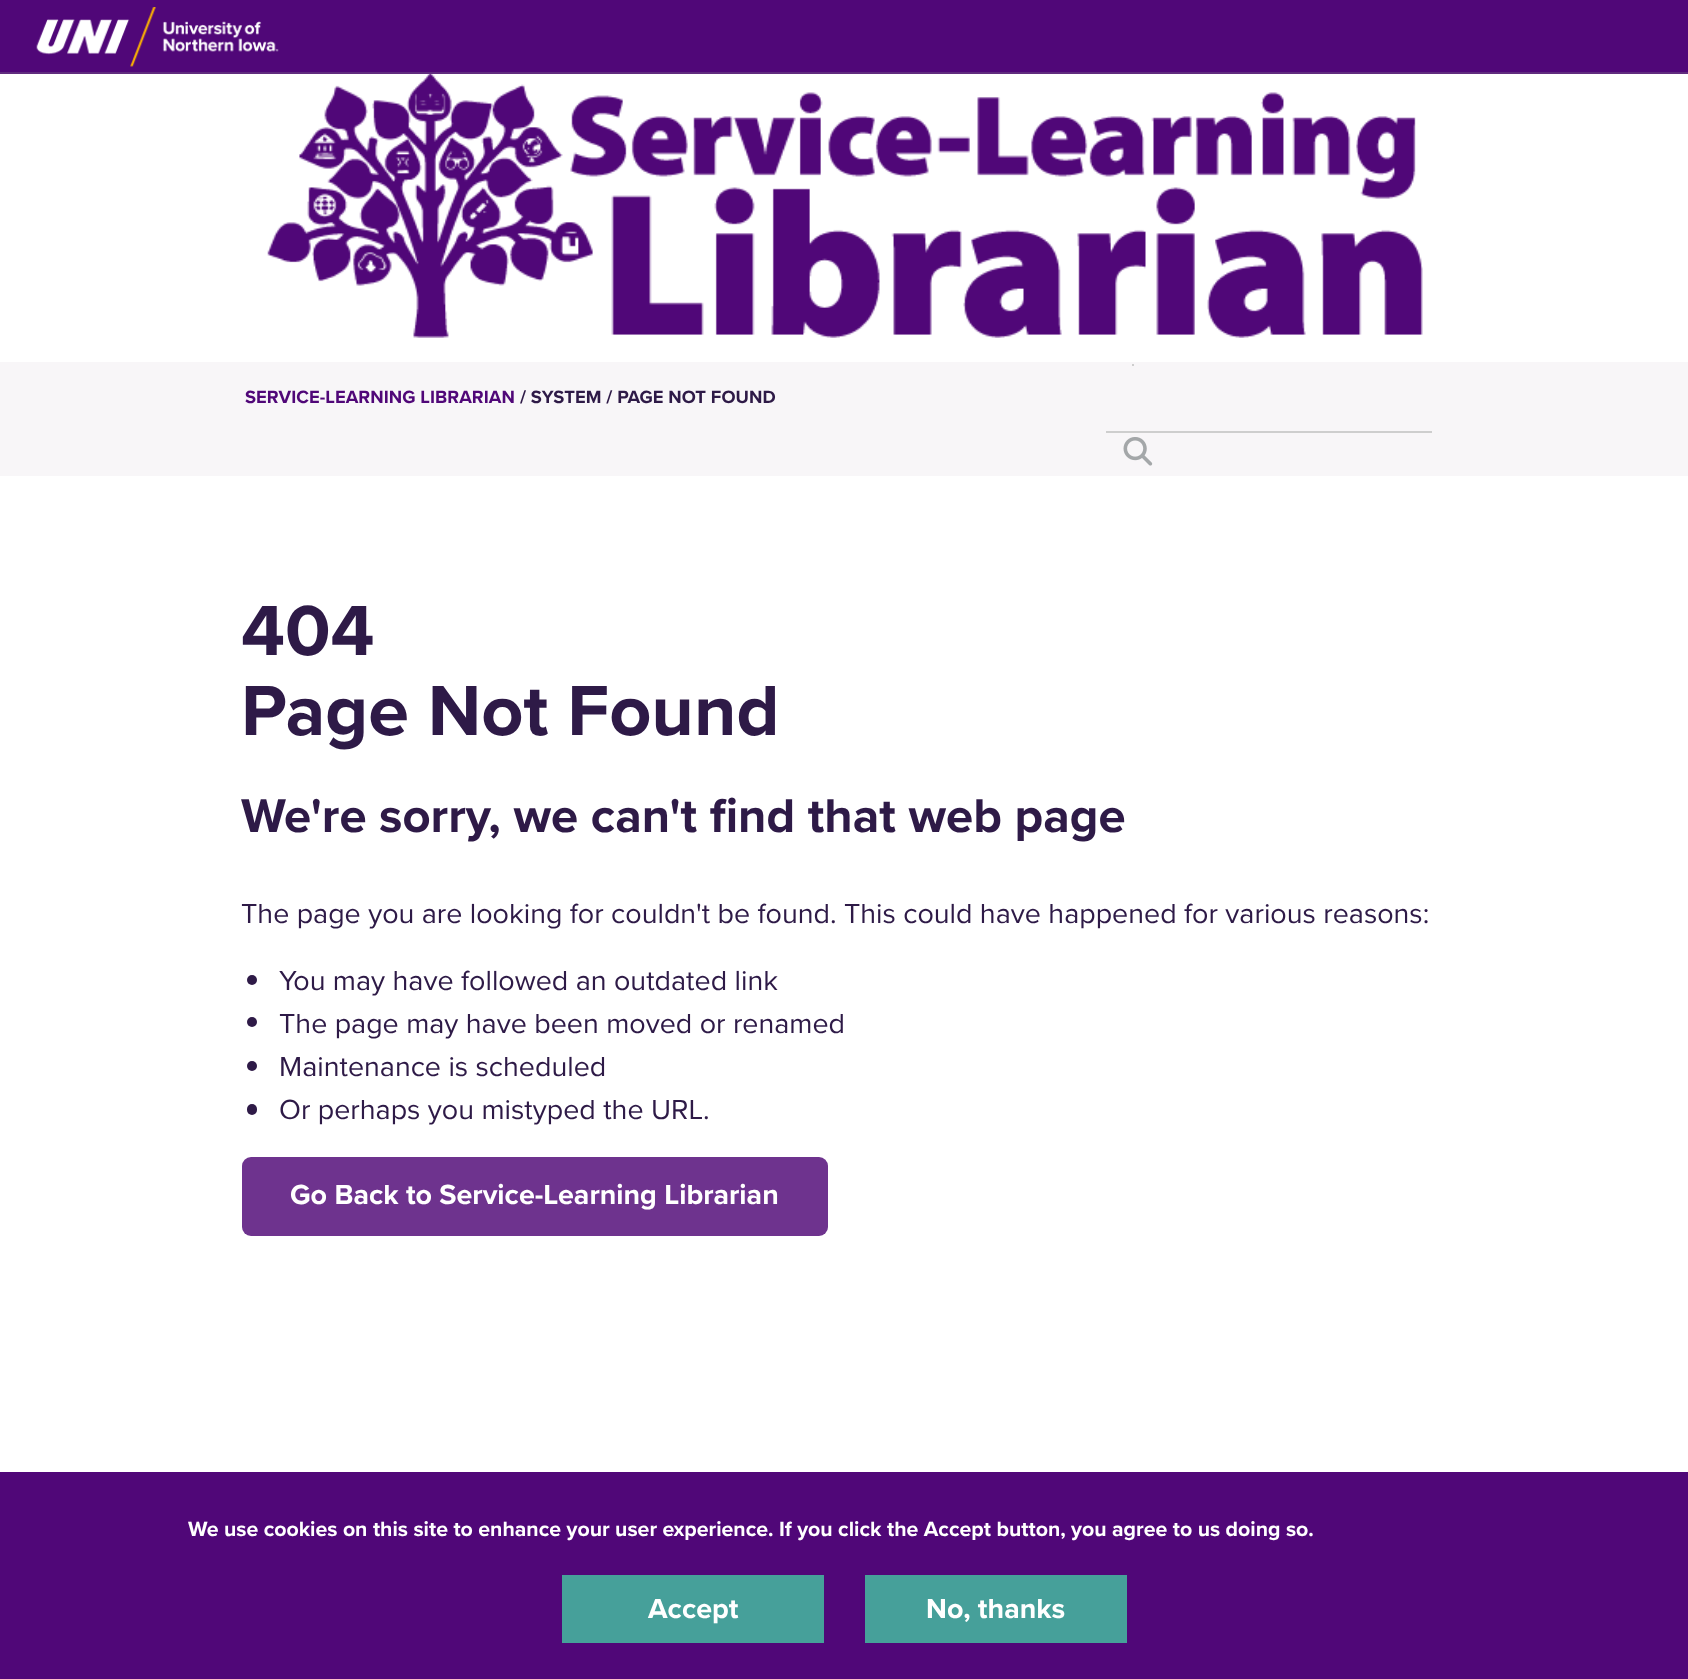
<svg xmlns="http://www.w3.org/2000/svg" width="1688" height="1679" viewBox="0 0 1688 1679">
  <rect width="100%" height="100%" fill="#ffffff"/>
  <rect x="0" y="0" width="1688" height="72" fill="#500778"/>
  <rect x="0" y="72" width="1688" height="2" fill="#602c7e"/>
  <image x="36" y="7" width="243" height="60" href="img1.png"/>
  <image x="267" y="74" width="1156" height="264" href="img2.png"/>
  <rect x="0" y="362" width="1688" height="114" fill="#f8f6f8"/>
  <text x="245" y="403" font-family="Proxima Nova" font-size="18.4" font-weight="bold" letter-spacing="0.05" fill="#500778">SERVICE-LEARNING LIBRARIAN</text>
  <text x="520" y="403" font-family="Proxima Nova" font-size="18.4" font-weight="bold" letter-spacing="0.05" fill="#2e1a47">/ SYSTEM / PAGE NOT FOUND</text>
  <rect x="1132" y="364" width="2" height="2" fill="#cecece"/>
  <rect x="1106" y="431" width="326" height="2" fill="#cecece"/>
  <image x="1123" y="437" width="30" height="29" href="img3.png"/>
  <text x="241" y="655" font-family="Proxima Nova" font-size="73.5" font-weight="bold" fill="#2e1a47">404</text>
  <text x="241" y="735" font-family="Proxima Nova" font-size="73.5" font-weight="bold" fill="#2e1a47">Page Not Found</text>
  <text x="241" y="832" font-family="Proxima Nova" font-size="49" font-weight="bold" fill="#2e1a47">We're sorry, we can't find that web page</text>
  <text x="241" y="923" font-family="Proxima Nova" font-size="28.65" fill="#2e1a47">The page you are looking for couldn't be found. This could have happened for various reasons:</text>
  <circle cx="252" cy="980" r="5" fill="#2e1a47"/>
  <text x="279" y="990" font-family="Proxima Nova" font-size="28.65" fill="#2e1a47">You may have followed an outdated link</text>
  <circle cx="252" cy="1022" r="5" fill="#2e1a47"/>
  <text x="279" y="1033" font-family="Proxima Nova" font-size="28.65" fill="#2e1a47">The page may have been moved or renamed</text>
  <circle cx="252" cy="1066" r="5" fill="#2e1a47"/>
  <text x="279" y="1076" font-family="Proxima Nova" font-size="28.65" fill="#2e1a47">Maintenance is scheduled</text>
  <rect x="247" y="1104" width="10" height="11" rx="5" fill="#2e1a47"/>
  <text x="279" y="1119" font-family="Proxima Nova" font-size="28.65" fill="#2e1a47">Or perhaps you mistyped the URL.</text>
  <rect x="242" y="1157" width="586" height="79" rx="9" fill="#6e338e"/>
  <text x="290" y="1204" font-family="Proxima Nova" font-size="28.65" font-weight="bold" fill="#ffffff">Go Back to Service-Learning Librarian</text>
  <rect x="0" y="1472" width="1688" height="207" fill="#500778"/>
  <text x="188" y="1536" font-family="Proxima Nova" font-size="21.3" font-weight="bold" fill="#ffffff">We use cookies on this site to enhance your user experience. If you click the Accept button, you agree to us doing so.</text>
  <rect x="562" y="1575" width="262" height="68" fill="#46a09a"/>
  <text x="648" y="1618" font-family="Proxima Nova" font-size="28.65" font-weight="bold" fill="#ffffff">Accept</text>
  <rect x="865" y="1575" width="262" height="68" fill="#46a09a"/>
  <text x="926" y="1618" font-family="Proxima Nova" font-size="28.65" font-weight="bold" fill="#ffffff">No, thanks</text>
</svg>
